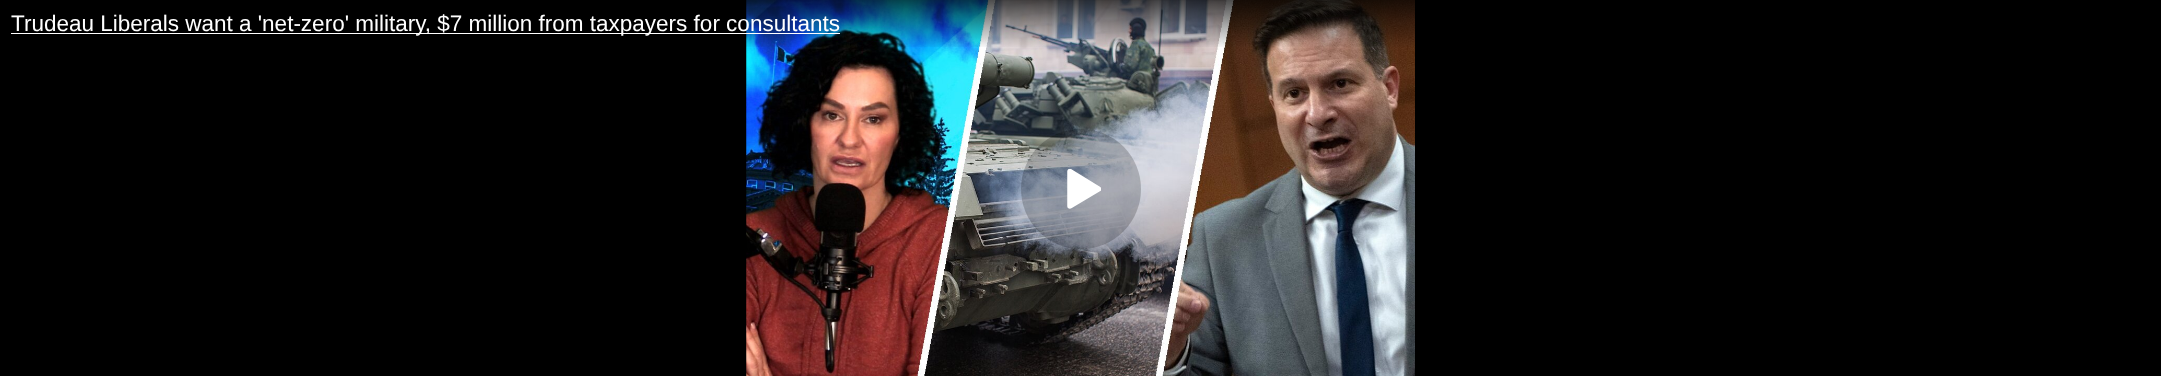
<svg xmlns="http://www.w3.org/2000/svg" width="2161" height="376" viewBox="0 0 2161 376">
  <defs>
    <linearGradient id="g1" gradientUnits="userSpaceOnUse" x1="1081" y1="0" x2="1081" y2="49"><stop offset="0" stop-color="#000000" stop-opacity="0.7"/><stop offset="1" stop-color="#000000" stop-opacity="0"/></linearGradient>
    <clipPath id="clip1"><rect x="1061" y="169" width="40" height="40"/></clipPath>
  </defs>
  <rect width="100%" height="100%" fill="#000000"/>
  <image x="746" y="0" width="669" height="376" href="img1.png"/>
  <rect x="746" y="0" width="669" height="47" fill="url(#g1)"/>
  <rect x="11" y="33" width="829" height="1" fill="#ffffff"/>
  <text x="11" y="31" font-family="Liberation Sans" font-size="22.5" fill="#ffffff">Trudeau Liberals want a 'net-zero' military, $7 million from taxpayers for consultants</text>
  <circle cx="1081" cy="189" r="60" fill="#000000" fill-opacity="0.2"/>
  <path d="M1098.5 189L1070 171.5V206Z" fill="#ffffff"/>
  <g clip-path="url(#clip1)">
    <path d="M1098.5 189L1070 171.5V206Z" fill="none" stroke="#ffffff" stroke-width="5.5" stroke-linejoin="round"/>
  </g>
</svg>
